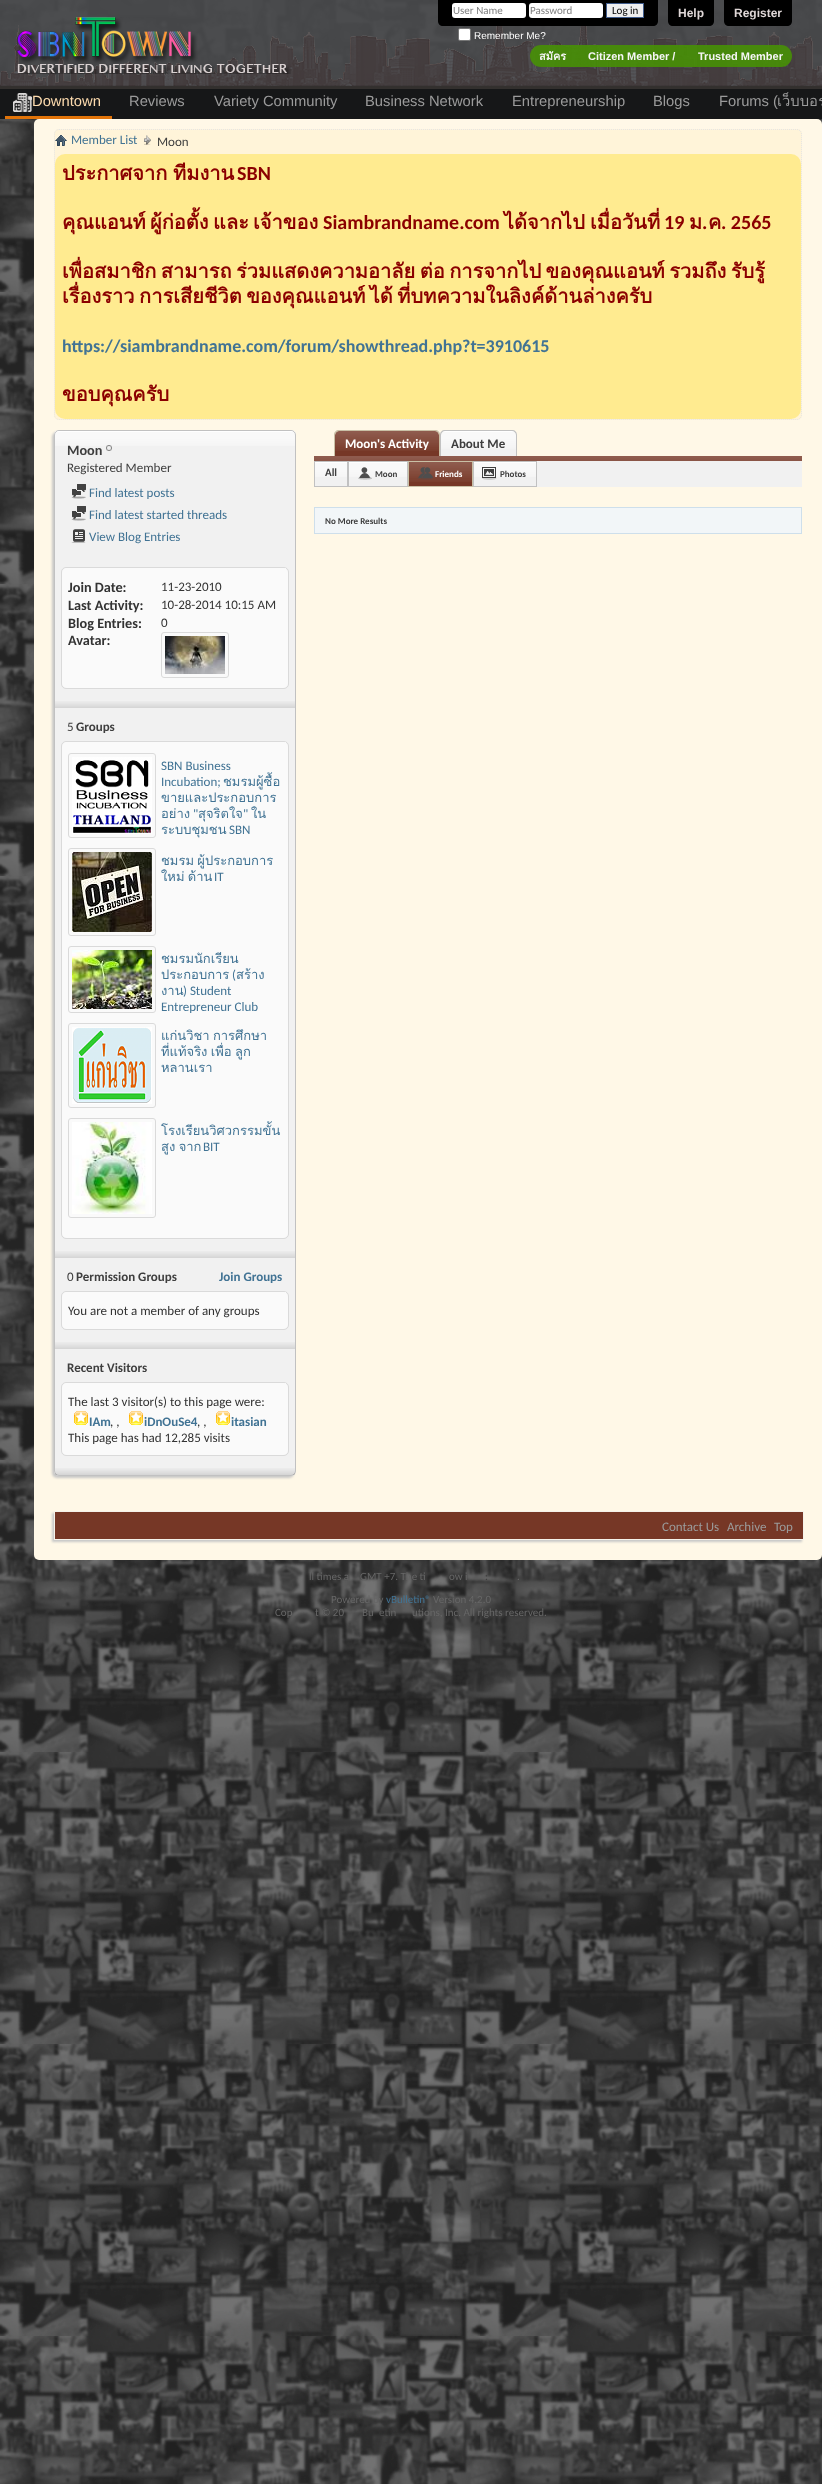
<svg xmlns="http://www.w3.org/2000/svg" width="822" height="2484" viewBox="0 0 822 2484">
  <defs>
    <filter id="blur1" x="-50%" y="-200%" width="200%" height="500%"><feGaussianBlur stdDeviation="1"/></filter>
  </defs>
  <rect width="100%" height="100%" fill="#ffffff"/>
  <image x="0" y="0" width="822" height="2484" href="img1.png"/>
  <rect x="0" y="0" width="822" height="83" fill="#494a4d" fill-opacity="0.9"/>
  <image x="0" y="25" width="822" height="61" href="img2.png"/>
  <image x="17" y="17" width="274" height="57" href="img3.png"/>
  <path d="M438 0H658V21C658 24 656 26 653 26H443C440 26 438 24 438 21Z" fill="#000000"/>
  <rect x="452" y="3" width="74" height="15" rx="3" fill="#ffffff"/>
  <text x="453" y="14" font-family="Carlito" font-size="11" fill="#828282">User Name</text>
  <rect x="529" y="3" width="74" height="15" rx="3" fill="#ffffff"/>
  <text x="530" y="14" font-family="Carlito" font-size="11" fill="#828282">Password</text>
  <rect x="606.5" y="3.5" width="37" height="14" fill="#efefef" stroke="#415d8d"/>
  <text x="612" y="14" font-family="Carlito" font-size="11" fill="#000000">Log in</text>
  <rect x="458.5" y="28.5" width="12" height="12" rx="1.5" fill="#ffffff" stroke="#767676"/>
  <text x="474" y="39" font-family="Liberation Sans" font-size="10" fill="#ffffff">Remember Me?</text>
  <path d="M668 0H714V21C714 24 712 26 709 26H673C670 26 668 24 668 21Z" fill="#000000"/>
  <text x="678" y="17" font-family="Liberation Sans" font-size="12" font-weight="bold" fill="#dfd7d7">Help</text>
  <path d="M724 0H792V21C792 24 790 26 787 26H729C726 26 724 24 724 21Z" fill="#000000"/>
  <text x="734" y="17" font-family="Liberation Sans" font-size="12" font-weight="bold" fill="#dfd7d7">Register</text>
  <rect x="530" y="45" width="262" height="22" rx="11" fill="#479006" fill-opacity="0.9"/>
  <text x="539" y="60" font-family="Loma" font-size="11" font-weight="bold" fill="#f6f6f6">สมัคร</text>
  <text x="588" y="60" font-family="Liberation Sans" font-size="11" font-weight="bold" fill="#f6f6f6">Citizen Member /</text>
  <text x="698" y="60" font-family="Liberation Sans" font-size="11" font-weight="bold" fill="#f6f6f6">Trusted Member</text>
  <rect x="0" y="87" width="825" height="31" fill="#000000" filter="url(#blur1)"/>
  <rect x="0" y="86" width="822" height="3" fill="#33302e"/>
  <rect x="0" y="89" width="822" height="30" fill="#161718"/>
  <rect x="5" y="116" width="107" height="3" fill="#e27409"/>
  <image x="13" y="93" width="19" height="19" href="img4.png"/>
  <text x="32" y="106" font-family="Liberation Sans" font-size="14.75" fill="#fddbae">Downtown</text>
  <text x="129" y="106" font-family="Liberation Sans" font-size="14.75" fill="#9b9b9b">Reviews</text>
  <text x="214" y="106" font-family="Liberation Sans" font-size="14.75" fill="#9b9b9b">Variety Community</text>
  <text x="365" y="106" font-family="Liberation Sans" font-size="14.75" fill="#9b9b9b">Business Network</text>
  <text x="512" y="106" font-family="Liberation Sans" font-size="14.75" fill="#9b9b9b">Entrepreneurship</text>
  <text x="653" y="106" font-family="Liberation Sans" font-size="14.75" fill="#9b9b9b">Blogs</text>
  <text x="719" y="106" font-family="Liberation Sans" font-size="14.75" fill="#9b9b9b">Forums (</text>
  <text x="777" y="106" font-family="Loma" font-size="14.75" fill="#9b9b9b">เว็บบอร</text>
  <rect x="34" y="119" width="788" height="1441" rx="5" fill="#fff8e7"/>
  <rect x="54" y="129" width="748" height="291" rx="5" fill="#fff4d9"/>
  <path d="M59 129.5H797C799.5 129.5 801.5 131.5 801.5 134V415C801.5 417.5 799.5 419.5 797 419.5H59C56.5 419.5 54.5 417.5 54.5 415V134C54.5 131.5 56.5 129.5 59 129.5Z" fill="none" stroke="#e5e5e5" stroke-dasharray="1 1"/>
  <image x="55" y="135" width="12" height="11" href="img5.png"/>
  <image x="144" y="135" width="7" height="10" href="img6.png"/>
  <text x="71" y="144" font-family="Carlito" font-size="13" fill="#417394">Member List</text>
  <text x="157" y="146" font-family="Carlito" font-size="13" fill="#3e3e3e">Moon</text>
  <rect x="55" y="154" width="746" height="265" rx="10" fill="#ffeb90"/>
  <text x="62" y="180" word-spacing="-1" font-family="Loma" font-size="20" font-weight="bold" fill="#8b0000">ประกาศจาก ทีมงาน</text>
  <text x="237" y="180" font-family="Carlito" font-size="20" font-weight="bold" fill="#8b0000">SBN</text>
  <text x="62" y="229" font-family="Loma" font-size="20" font-weight="bold" fill="#8b0000">คุณแอนท์</text>
  <text x="150" y="229" font-family="Loma" font-size="20" font-weight="bold" fill="#8b0000">ผู้ก่อตั้ง</text>
  <text x="213" y="229" font-family="Loma" font-size="20" font-weight="bold" fill="#8b0000">และ</text>
  <text x="253" y="229" font-family="Loma" font-size="20" font-weight="bold" fill="#8b0000">เจ้าของ</text>
  <text x="323" y="229" font-family="Carlito" font-size="20" font-weight="bold" fill="#8b0000">Siambrandname.com</text>
  <text x="504" y="229" font-family="Loma" font-size="20" font-weight="bold" fill="#8b0000">ได้จากไป</text>
  <text x="590" y="229" font-family="Loma" font-size="20" font-weight="bold" fill="#8b0000">เมื่อวันที่</text>
  <text x="664" y="229" font-family="Carlito" font-size="20" font-weight="bold" fill="#8b0000">19</text>
  <text x="689" y="229" font-family="Loma" font-size="20" font-weight="bold" fill="#8b0000">ม</text>
  <text x="702" y="229" font-family="Carlito" font-size="20" font-weight="bold" fill="#8b0000">.</text>
  <text x="708" y="229" font-family="Loma" font-size="20" font-weight="bold" fill="#8b0000">ค</text>
  <text x="721" y="229" font-family="Carlito" font-size="20" font-weight="bold" fill="#8b0000">. 2565</text>
  <text x="62" y="278" word-spacing="-2.25" font-family="Loma" font-size="20" font-weight="bold" fill="#8b0000">เพื่อสมาชิก สามารถ ร่วมแสดงความอาลัย ต่อ การจากไป ของคุณแอนท์ รวมถึง รับรู้</text>
  <text x="62" y="303" word-spacing="-2.25" font-family="Loma" font-size="20" font-weight="bold" fill="#8b0000">เรื่องราว การเสียชีวิต ของคุณแอนท์ ได้ ที่บทความในลิงค์ด้านล่างครับ</text>
  <text x="62" y="352" font-family="Carlito" font-size="18" font-weight="bold" fill="#417394">https://siambrandname.com/forum/showthread.php?t=3910615</text>
  <text x="62" y="401" font-family="Loma" font-size="20" font-weight="bold" fill="#8b0000">ขอบคุณครับ</text>
  <rect x="52" y="432" width="242" height="1046" rx="5" fill="#c8c8c8" filter="url(#blur1)"/>
  <rect x="54" y="430" width="242" height="1046" rx="5" fill="#f1f1f1"/>
  <image x="54" y="431" width="242" height="15" href="img7.png"/>
  <rect x="54.5" y="430.5" width="241" height="1045" rx="4.5" fill="none" stroke="#c1c1c1"/>
  <image x="57" y="431" width="236" height="1" href="img8.png"/>
  <text x="67" y="455" font-family="Carlito" font-size="14.25" font-weight="bold" fill="#3e3e3e">Moon</text>
  <image x="106" y="445" width="6" height="6" href="img9.png"/>
  <text x="67" y="472" font-family="Carlito" font-size="13" fill="#3e3e3e">Registered Member</text>
  <image x="71" y="484" width="15" height="15" href="img10.png"/>
  <text x="89" y="497" font-family="Carlito" font-size="13" fill="#417394">Find latest posts</text>
  <image x="71" y="506" width="15" height="15" href="img10.png"/>
  <text x="89" y="519" font-family="Carlito" font-size="13" fill="#417394">Find latest started threads</text>
  <image x="71" y="529" width="15" height="14" href="img11.png"/>
  <text x="89" y="541" font-family="Carlito" font-size="13" fill="#417394">View Blog Entries</text>
  <rect x="61.5" y="567.5" width="227" height="121" rx="4.5" fill="none" stroke="#dadada"/>
  <rect x="62" y="568" width="226" height="120" rx="5" fill="#fafafa"/>
  <rect x="285" y="568" width="1" height="1" fill="#fafafa"/>
  <text x="68" y="592" font-family="Carlito" font-size="14.25" font-weight="bold" fill="#333333">Join Date:</text>
  <text x="161" y="591" font-family="Carlito" font-size="13" fill="#333333">11-23-2010</text>
  <text x="68" y="610" font-family="Carlito" font-size="14.25" font-weight="bold" fill="#333333">Last Activity:</text>
  <text x="161" y="609" font-family="Carlito" font-size="13" fill="#333333">10-28-2014 10:15 AM</text>
  <text x="68" y="628" font-family="Carlito" font-size="14.25" font-weight="bold" fill="#333333">Blog Entries:</text>
  <text x="161" y="627" font-family="Carlito" font-size="13" fill="#333333">0</text>
  <text x="68" y="645" font-family="Carlito" font-size="14.25" font-weight="bold" fill="#333333">Avatar:</text>
  <rect x="161.5" y="632.5" width="67" height="45" rx="2.5" fill="none" stroke="#dadada"/>
  <image x="165" y="636" width="60" height="38" href="img12.png"/>
  <image x="55" y="701" width="240" height="7" href="img13.png"/>
  <text x="67" y="731" font-family="Carlito" font-size="13" fill="#3e3e3e">5</text>
  <text x="76" y="731" font-family="Carlito" font-size="13" font-weight="bold" fill="#3e3e3e">Groups</text>
  <rect x="61.5" y="741.5" width="227" height="497" rx="4.5" fill="none" stroke="#dadada"/>
  <rect x="62" y="742" width="226" height="496" rx="5" fill="#fafafa"/>
  <rect x="285" y="742" width="1" height="1" fill="#fafafa"/>
  <rect x="68.5" y="753.5" width="87" height="84" rx="2.5" fill="none" stroke="#dadada"/>
  <image x="72" y="757" width="80" height="77" href="img14.png"/>
  <text x="161" y="770" font-family="Carlito" font-size="13" fill="#417394">SBN Business</text>
  <text x="161" y="786" font-family="Carlito" font-size="13" fill="#417394">Incubation;</text>
  <text x="223" y="786" font-family="Loma" font-size="13" fill="#417394">ชมรมผู้ซื้อ</text>
  <text x="161" y="802" font-family="Loma" font-size="13" fill="#417394">ขายและประกอบการ</text>
  <text x="161" y="818" font-family="Loma" font-size="13" fill="#417394">อย่าง</text>
  <text x="193" y="818" font-family="Carlito" font-size="13" fill="#417394">"</text>
  <text x="198" y="818" font-family="Loma" font-size="13" fill="#417394">สุจริตใจ</text>
  <text x="251" y="818" font-family="Loma" font-size="13" fill="#417394">ใน</text>
  <text x="243" y="818" font-family="Carlito" font-size="13" fill="#417394">"</text>
  <text x="161" y="834" font-family="Loma" font-size="13" fill="#417394">ระบบชุมชน</text>
  <text x="229" y="834" font-family="Carlito" font-size="13" fill="#417394">SBN</text>
  <rect x="68.5" y="848.5" width="87" height="87" rx="2.5" fill="none" stroke="#dadada"/>
  <image x="72" y="852" width="80" height="80" href="img15.png"/>
  <text x="161" y="865" word-spacing="-1" font-family="Loma" font-size="13" fill="#417394">ชมรม ผู้ประกอบการ</text>
  <text x="161" y="881" word-spacing="-1" font-family="Loma" font-size="13" fill="#417394">ใหม่ ด้าน</text>
  <text x="214" y="881" font-family="Carlito" font-size="13" fill="#417394">IT</text>
  <rect x="68.5" y="946.5" width="87" height="66" rx="2.5" fill="none" stroke="#dadada"/>
  <image x="72" y="950" width="80" height="59" href="img16.png"/>
  <text x="161" y="963" font-family="Loma" font-size="13" fill="#417394">ชมรมนักเรียน</text>
  <text x="161" y="979" font-family="Loma" font-size="13" fill="#417394">ประกอบการ</text>
  <text x="232" y="979" font-family="Carlito" font-size="13" fill="#417394">(</text>
  <text x="236" y="979" font-family="Loma" font-size="13" fill="#417394">สร้าง</text>
  <text x="161" y="995" font-family="Loma" font-size="13" fill="#417394">งาน</text>
  <text x="183" y="995" font-family="Carlito" font-size="13" fill="#417394">) Student</text>
  <text x="161" y="1011" font-family="Carlito" font-size="13" fill="#417394">Entrepreneur Club</text>
  <text x="161" y="1056" word-spacing="-1" font-family="Loma" font-size="13" fill="#417394">ที่แท้จริง เพื่อ ลูก</text>
  <rect x="68.5" y="1023.5" width="87" height="84" rx="2.5" fill="none" stroke="#dadada"/>
  <image x="72" y="1027" width="80" height="77" href="img17.png"/>
  <text x="161" y="1040" word-spacing="-1" font-family="Loma" font-size="13" fill="#417394">แก่นวิชา การศึกษา</text>
  <text x="161" y="1072" font-family="Loma" font-size="13" fill="#417394">หลานเรา</text>
  <text x="161" y="1151" word-spacing="-1" font-family="Loma" font-size="13" fill="#417394">สูง จาก</text>
  <rect x="68.5" y="1118.5" width="87" height="99" rx="2.5" fill="none" stroke="#dadada"/>
  <image x="72" y="1122" width="80" height="92" href="img18.png"/>
  <text x="161" y="1135" font-family="Loma" font-size="13" fill="#417394">โรงเรียนวิศวกรรมขั้น</text>
  <text x="203" y="1151" font-family="Carlito" font-size="13" fill="#417394">BIT</text>
  <image x="55" y="1251" width="240" height="7" href="img13.png"/>
  <text x="67" y="1281" font-family="Carlito" font-size="13" fill="#3e3e3e">0</text>
  <text x="76" y="1281" font-family="Carlito" font-size="13" font-weight="bold" fill="#3e3e3e">Permission Groups</text>
  <text x="219" y="1281" font-family="Carlito" font-size="13" font-weight="bold" fill="#417394">Join Groups</text>
  <rect x="61.5" y="1291.5" width="227" height="38" rx="4.5" fill="none" stroke="#dadada"/>
  <rect x="62" y="1292" width="226" height="37" rx="5" fill="#fafafa"/>
  <rect x="285" y="1292" width="1" height="1" fill="#fafafa"/>
  <text x="68" y="1315" font-family="Carlito" font-size="13" fill="#333333">You are not a member of any groups</text>
  <image x="55" y="1342" width="240" height="7" href="img13.png"/>
  <text x="67" y="1372" font-family="Carlito" font-size="13" font-weight="bold" fill="#3e3e3e">Recent Visitors</text>
  <rect x="61.5" y="1382.5" width="227" height="73" rx="4.5" fill="none" stroke="#dadada"/>
  <rect x="62" y="1383" width="226" height="72" rx="5" fill="#fafafa"/>
  <rect x="285" y="1383" width="1" height="1" fill="#fafafa"/>
  <text x="68" y="1406" font-family="Carlito" font-size="13" fill="#333333">The last 3 visitor(s) to this page were:</text>
  <image x="74" y="1411" width="14" height="14" href="img19.png"/>
  <text x="89" y="1426" font-family="Carlito" font-size="13" font-weight="bold" fill="#417394">IAm</text>
  <text x="110" y="1426" font-family="Carlito" font-size="13" fill="#333333">, ,</text>
  <image x="129" y="1411" width="14" height="14" href="img19.png"/>
  <text x="144" y="1426" font-family="Carlito" font-size="13" font-weight="bold" fill="#417394">iDnOuSe4</text>
  <text x="197" y="1426" font-family="Carlito" font-size="13" fill="#333333">, ,</text>
  <image x="216" y="1411" width="14" height="14" href="img19.png"/>
  <text x="231" y="1426" font-family="Carlito" font-size="13" font-weight="bold" fill="#417394">itasian</text>
  <text x="68" y="1442" font-family="Carlito" font-size="13" fill="#333333">This page has had 12,285 visits</text>
  <image x="55" y="1468" width="240" height="7" href="img20.png"/>
  <path d="M339 431H435C437 431 439 433 439 435V456H335V435C335 433 337 431 339 431Z" fill="#763726"/>
  <image x="335" y="431" width="104" height="20" href="img21.png"/>
  <path d="M339 430H435C438 430 440 432 440 435V456H334V435C334 432 336 430 339 430ZM339 431H435C437 431 439 433 439 435V456H335V435C335 433 337 431 339 431Z" fill="#c9c0a6" fill-rule="evenodd"/>
  <text x="345" y="448" font-family="Carlito" font-size="13" font-weight="bold" fill="#ffffff">Moon's Activity</text>
  <path d="M445 431H512C514 431 516 433 516 435V456H441V435C441 433 443 431 445 431Z" fill="#f1f1f1"/>
  <image x="440" y="431" width="77" height="18" href="img22.png"/>
  <path d="M445 430H512C515 430 517 432 517 435V456H440V435C440 432 442 430 445 430ZM445 431H512C514 431 516 433 516 435V456H441V435C441 433 443 431 445 431Z" fill="#c1c1c1" fill-rule="evenodd"/>
  <text x="451" y="448" font-family="Carlito" font-size="13" font-weight="bold" fill="#3e3e3e">About Me</text>
  <rect x="314" y="456" width="488" height="5" fill="#763726"/>
  <image x="314" y="456" width="488" height="5" href="img23.png"/>
  <rect x="315" y="461" width="487" height="26" fill="#f1f1f1"/>
  <image x="315" y="462" width="32" height="15" href="img24.png"/>
  <rect x="314.5" y="461.5" width="33" height="25" fill="none" stroke="#c1c1c1"/>
  <text x="325" y="476" font-family="Carlito" font-size="11" font-weight="bold" fill="#3e3e3e">All</text>
  <image x="349" y="462" width="58" height="15" href="img25.png"/>
  <rect x="348.5" y="461.5" width="59" height="25" fill="none" stroke="#c1c1c1"/>
  <image x="358" y="467" width="14" height="13" href="img26.png"/>
  <text x="375" y="477" font-family="Carlito" font-size="9" font-weight="bold" fill="#3e3e3e">Moon</text>
  <rect x="409" y="462" width="63" height="24" fill="#763726"/>
  <image x="409" y="462" width="63" height="20" href="img27.png"/>
  <rect x="408.5" y="461.5" width="64" height="25" fill="none" stroke="#c9c0a6"/>
  <image x="417" y="467" width="16" height="13" href="img28.png"/>
  <text x="435" y="477" font-family="Carlito" font-size="9" font-weight="bold" fill="#ffffff">Friends</text>
  <image x="474" y="462" width="62" height="15" href="img29.png"/>
  <rect x="473.5" y="461.5" width="63" height="25" fill="none" stroke="#c1c1c1"/>
  <image x="482" y="467" width="15" height="13" href="img30.png"/>
  <text x="500" y="477" font-family="Carlito" font-size="9" font-weight="bold" fill="#3e3e3e">Photos</text>
  <rect x="314.5" y="507.5" width="487" height="26" fill="#f2f6f8" stroke="#cedfeb"/>
  <text x="325" y="524" font-family="Carlito" font-size="9" font-weight="bold" fill="#3e3e3e">No More Results</text>
  <rect x="52" y="1513" width="750" height="29" fill="#c8c8c8" filter="url(#blur1)"/>
  <rect x="54.5" y="1511.5" width="749" height="28" fill="#763726" stroke="#f5f2ea"/>
  <text x="662" y="1531" font-family="Carlito" font-size="13" fill="#9b9b9b">Contact Us</text>
  <text x="727" y="1531" font-family="Carlito" font-size="13" fill="#9b9b9b">Archive</text>
  <text x="774" y="1531" font-family="Carlito" font-size="13" fill="#9b9b9b">Top</text>
  <text x="309" y="1580" font-family="Carlito" font-size="11" fill="#666666">ll times a</text>
  <text x="360" y="1580" font-family="Carlito" font-size="11" fill="#666666">GMT +7. The ti</text>
  <text x="449" y="1580" font-family="Carlito" font-size="11" fill="#666666">ow i</text>
  <text x="485" y="1580" font-family="Carlito" font-size="11" fill="#3e3e3e">:</text>
  <text x="517" y="1580" font-family="Carlito" font-size="11" fill="#666666">.</text>
  <text x="331" y="1603" font-family="Carlito" font-size="11" fill="#666666">Powered by</text>
  <text x="386" y="1603" font-family="Carlito" font-size="11" fill="#417394">vBulletin®</text>
  <text x="433" y="1603" font-family="Carlito" font-size="11" fill="#666666">Version 4.2.0</text>
  <text x="275" y="1616" font-family="Carlito" font-size="11" fill="#666666">Cop</text>
  <text x="315" y="1616" font-family="Carlito" font-size="11" fill="#666666">t © 20</text>
  <text x="362" y="1616" font-family="Carlito" font-size="11" fill="#666666">Bu</text>
  <text x="379" y="1616" font-family="Carlito" font-size="11" fill="#666666">etin</text>
  <text x="412" y="1616" font-family="Carlito" font-size="11" fill="#666666">utions, Inc. All rights reserved.</text>
</svg>
